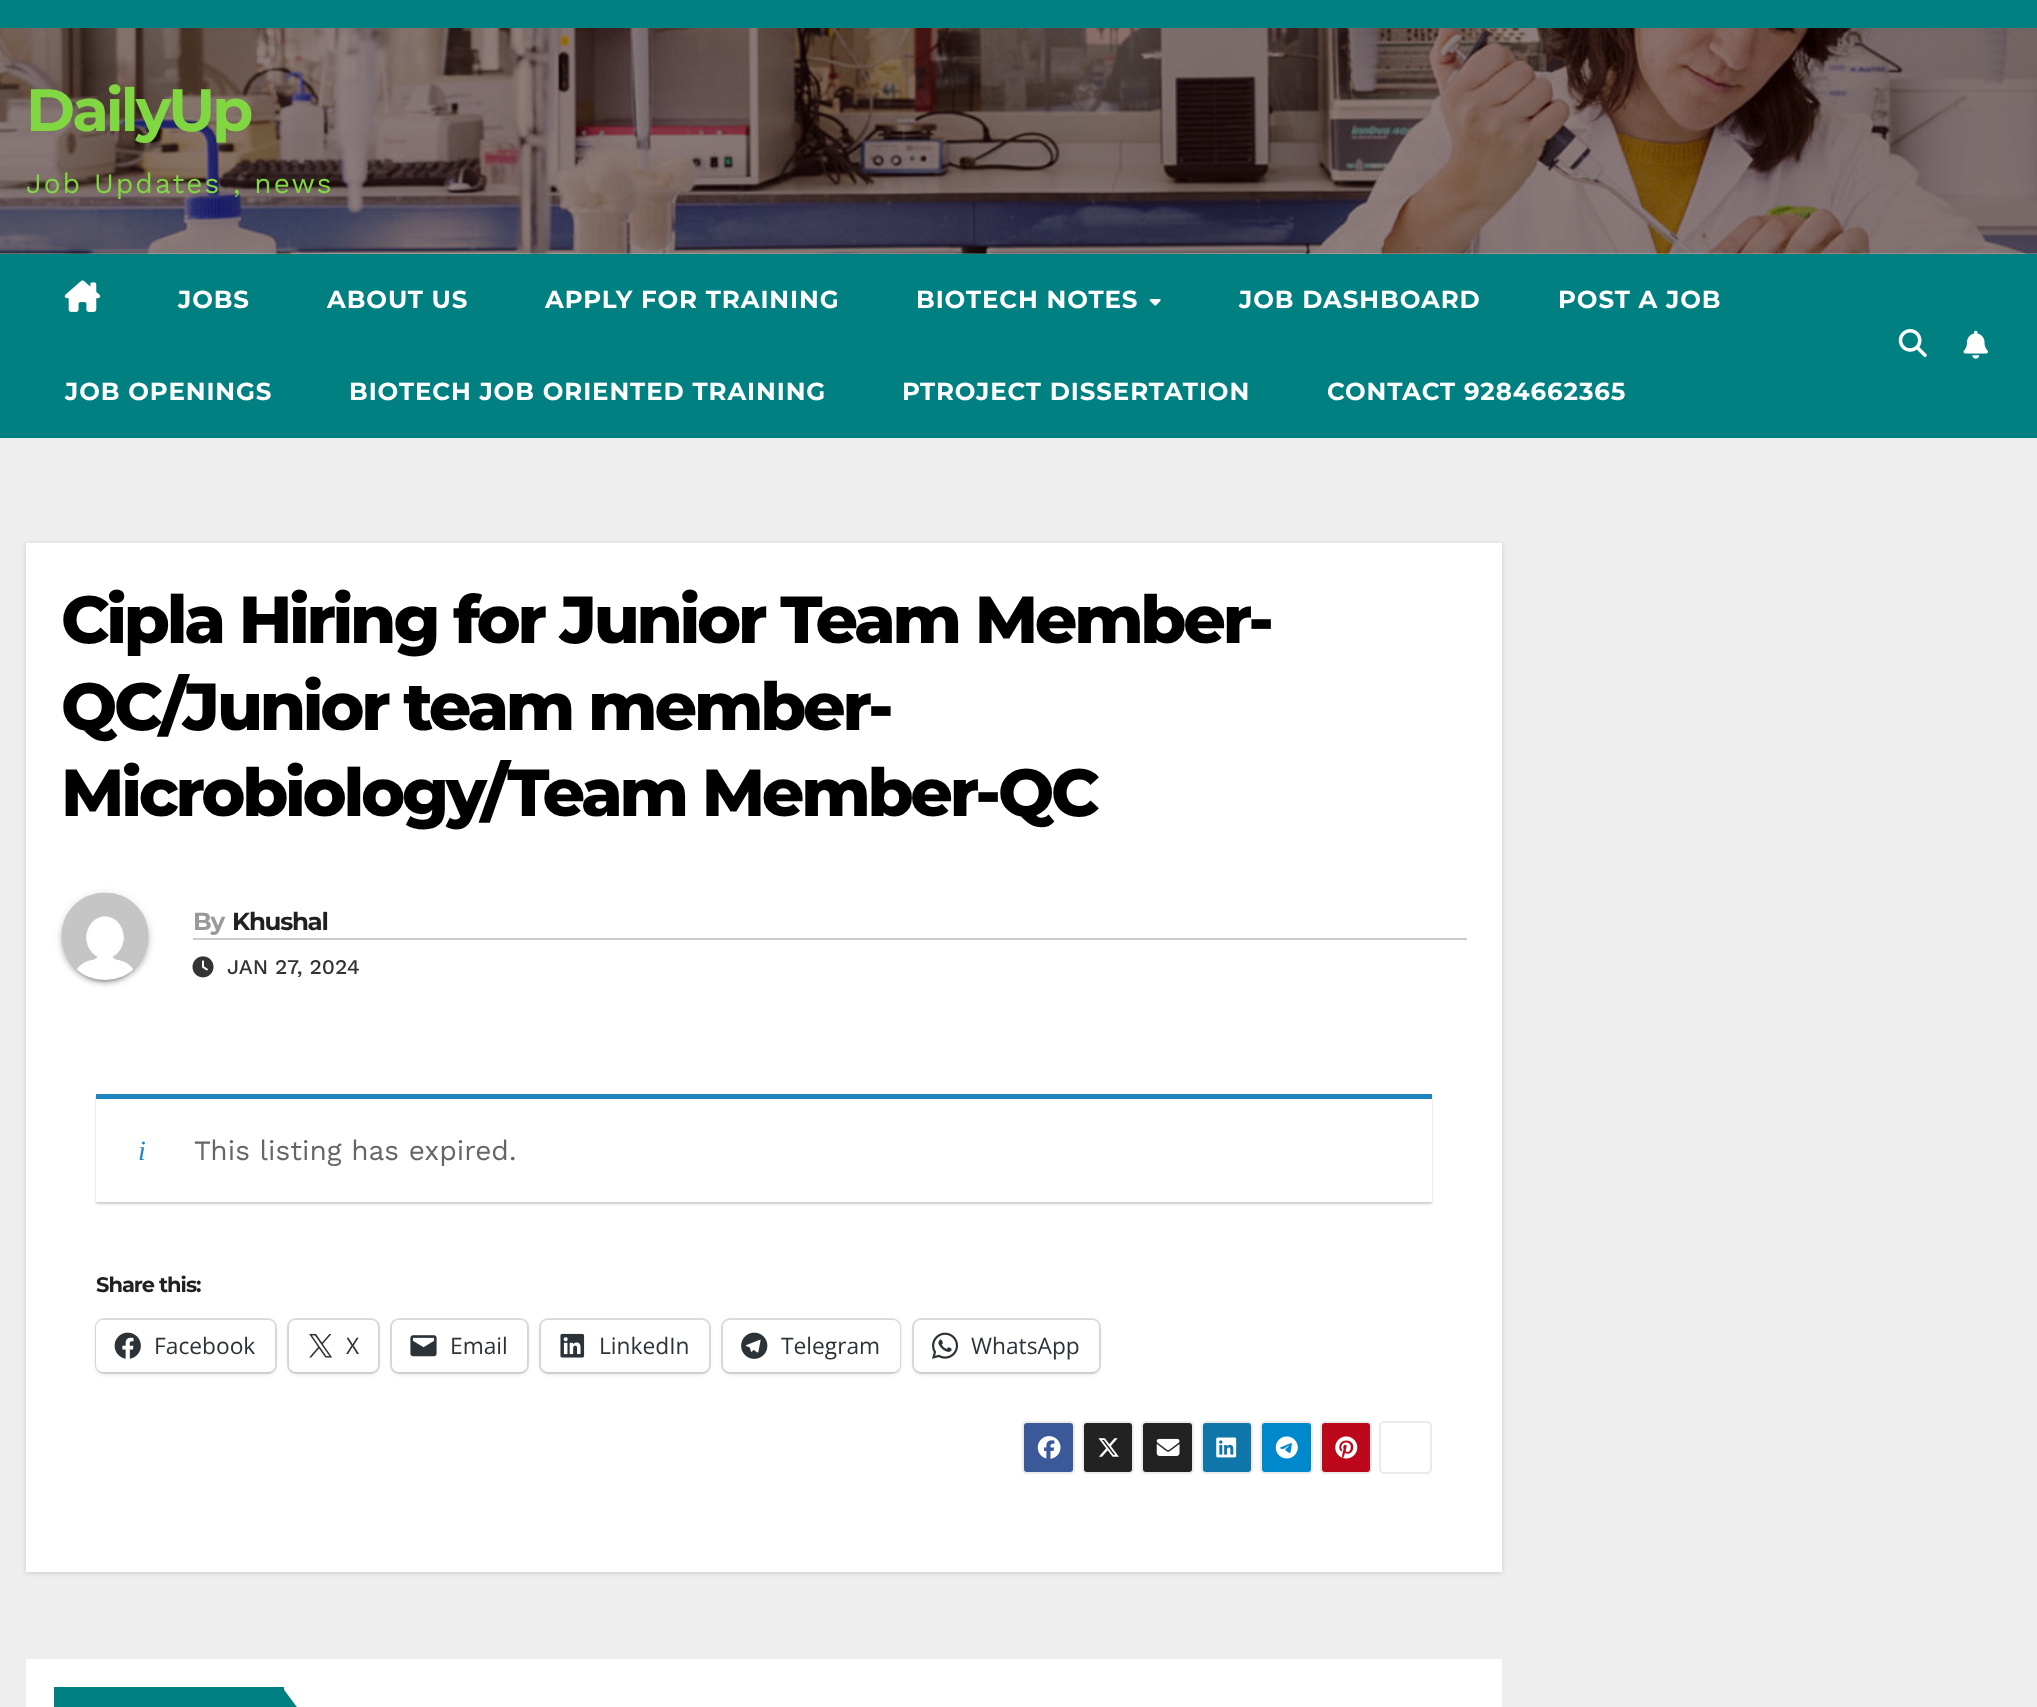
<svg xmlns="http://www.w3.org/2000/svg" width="2037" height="1707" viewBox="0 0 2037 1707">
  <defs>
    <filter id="blur1" x="-50%" y="-200%" width="200%" height="500%"><feGaussianBlur stdDeviation="2.5"/></filter>
    <filter id="blur2" x="-50%" y="-200%" width="200%" height="500%"><feGaussianBlur stdDeviation="4.5"/></filter>
    <filter id="blur3" x="-50%" y="-200%" width="200%" height="500%"><feGaussianBlur stdDeviation="1"/></filter>
    <filter id="blur4" x="-50%" y="-200%" width="200%" height="500%"><feGaussianBlur stdDeviation="2"/></filter>
  </defs>
  <rect width="100%" height="100%" fill="#eeeeee"/>
  <rect x="0" y="0" width="2037" height="28" fill="#008080"/>
  <image x="0" y="28" width="2037" height="226" href="img1.png"/>
  <text x="26" y="131" font-family="Montserrat" font-size="59.5" font-weight="bold" letter-spacing="-3" fill="#81d742">DailyUp</text>
  <text x="26" y="193" font-family="Work Sans" font-size="28" letter-spacing="2.1" fill="#81d742">Job Updates , news</text>
  <rect x="0" y="254" width="2037" height="184" fill="#008080"/>
  <image x="64" y="280" width="37" height="32" href="img2.png"/>
  <text x="178" y="308" font-family="Montserrat" font-size="24.5" font-weight="bold" letter-spacing="0.9" fill="#ffffff">JOBS</text>
  <text x="327" y="308" font-family="Montserrat" font-size="24.5" font-weight="bold" letter-spacing="0.9" fill="#ffffff">ABOUT US</text>
  <text x="545" y="308" font-family="Montserrat" font-size="24.5" font-weight="bold" letter-spacing="0.9" fill="#ffffff">APPLY FOR TRAINING</text>
  <text x="916" y="308" font-family="Montserrat" font-size="24.5" font-weight="bold" letter-spacing="0.9" fill="#ffffff">BIOTECH NOTES</text>
  <image x="1149" y="299" width="12" height="7" href="img3.png"/>
  <text x="1239" y="308" font-family="Montserrat" font-size="24.5" font-weight="bold" letter-spacing="0.9" fill="#ffffff">JOB DASHBOARD</text>
  <text x="1558" y="308" font-family="Montserrat" font-size="24.5" font-weight="bold" letter-spacing="0.9" fill="#ffffff">POST A JOB</text>
  <text x="65" y="400" font-family="Montserrat" font-size="24.5" font-weight="bold" letter-spacing="0.9" fill="#ffffff">JOB OPENINGS</text>
  <text x="349" y="400" font-family="Montserrat" font-size="24.5" font-weight="bold" letter-spacing="0.9" fill="#ffffff">BIOTECH JOB ORIENTED TRAINING</text>
  <text x="902" y="400" font-family="Montserrat" font-size="24.5" font-weight="bold" letter-spacing="0.9" fill="#ffffff">PTROJECT DISSERTATION</text>
  <text x="1327" y="400" font-family="Montserrat" font-size="24.5" font-weight="bold" letter-spacing="0.9" fill="#ffffff">CONTACT 9284662365</text>
  <image x="1898" y="329" width="29" height="28" href="img4.png"/>
  <image x="1963" y="330" width="25" height="29" href="img5.png"/>
  <rect x="26" y="544" width="1476" height="1029" fill="#000000" fill-opacity="0.15" filter="url(#blur1)"/>
  <rect x="26" y="543" width="1476" height="1029" fill="#ffffff"/>
  <text x="61" y="643" font-family="Montserrat" font-size="66.5" font-weight="800" letter-spacing="-3.3" fill="#000000">Cipla Hiring for Junior Team Member-</text>
  <text x="61" y="730" font-family="Montserrat" font-size="66.5" font-weight="800" letter-spacing="-3.3" fill="#000000">QC/Junior team member-</text>
  <text x="61" y="816" font-family="Montserrat" font-size="66.5" font-weight="800" letter-spacing="-3.3" fill="#000000">Microbiology/Team Member-QC</text>
  <rect x="61" y="894" width="88" height="88" rx="44" fill="#000000" fill-opacity="0.12" filter="url(#blur2)"/>
  <rect x="65" y="901" width="80" height="81" rx="40" fill="#000000" fill-opacity="0.2" filter="url(#blur3)"/>
  <rect x="61" y="896" width="88" height="88" rx="44" fill="#000000" fill-opacity="0.14" filter="url(#blur4)"/>
  <image x="61" y="892" width="88" height="88" href="img6.png"/>
  <rect x="193" y="938" width="1274" height="2" fill="#cccccc"/>
  <text x="193" y="930" font-family="Montserrat" font-size="24.5" font-weight="bold" letter-spacing="-1.25" fill="#999999">By</text>
  <text x="232" y="930" font-family="Montserrat" font-size="24.5" font-weight="bold" letter-spacing="-1.25" fill="#212121">Khushal</text>
  <image x="192" y="956" width="22" height="22" href="img7.png"/>
  <text x="227" y="974" font-family="Work Sans" font-size="21" font-weight="500" fill="#333333">JAN 27, 2024</text>
  <rect x="96" y="1096" width="1336" height="108" fill="#000000" fill-opacity="0.2" filter="url(#blur3)"/>
  <rect x="96" y="1099" width="1336" height="103" fill="#ffffff"/>
  <rect x="96" y="1094" width="1336" height="5" fill="#1e85be"/>
  <text x="138" y="1160" font-family="Liberation Serif" font-size="28" font-style="italic" fill="#1e85be">i</text>
  <text x="194" y="1160" font-family="Work Sans" font-size="28" fill="#666666">This listing has expired.</text>
  <text x="96" y="1292" font-family="Montserrat" font-size="21" font-weight="bold" letter-spacing="-1" fill="#212121">Share this:</text>
  <rect x="96" y="1319" width="180" height="54" rx="8" fill="none" stroke="#e0e0e0" stroke-width="2"/>
  <rect x="96" y="1321" width="179" height="53" rx="7" fill="#000000" fill-opacity="0.12" filter="url(#blur4)"/>
  <rect x="96" y="1320" width="179" height="52" rx="7" fill="#ffffff"/>
  <image x="114" y="1332" width="27" height="27" href="img8.png"/>
  <text x="154" y="1354" font-family="Open Sans" font-size="22.75" fill="#2c3338">Facebook</text>
  <rect x="288" y="1319" width="91" height="54" rx="8" fill="none" stroke="#e0e0e0" stroke-width="2"/>
  <rect x="289" y="1321" width="89" height="53" rx="7" fill="#000000" fill-opacity="0.12" filter="url(#blur4)"/>
  <rect x="289" y="1320" width="89" height="52" rx="7" fill="#ffffff"/>
  <image x="309" y="1333" width="23" height="25" href="img9.png"/>
  <text x="346" y="1354" font-family="Open Sans" font-size="22.75" fill="#2c3338">X</text>
  <rect x="391" y="1319" width="137" height="54" rx="8" fill="none" stroke="#e0e0e0" stroke-width="2"/>
  <rect x="392" y="1321" width="135" height="53" rx="7" fill="#000000" fill-opacity="0.12" filter="url(#blur4)"/>
  <rect x="392" y="1320" width="135" height="52" rx="7" fill="#ffffff"/>
  <image x="410" y="1335" width="27" height="22" href="img10.png"/>
  <text x="450" y="1354" font-family="Open Sans" font-size="22.75" fill="#2c3338">Email</text>
  <rect x="540" y="1319" width="170" height="54" rx="8" fill="none" stroke="#e0e0e0" stroke-width="2"/>
  <rect x="541" y="1321" width="168" height="53" rx="7" fill="#000000" fill-opacity="0.12" filter="url(#blur4)"/>
  <rect x="541" y="1320" width="168" height="52" rx="7" fill="#ffffff"/>
  <image x="560" y="1333" width="25" height="25" href="img11.png"/>
  <text x="599" y="1354" font-family="Open Sans" font-size="22.75" fill="#2c3338">LinkedIn</text>
  <rect x="722" y="1319" width="178" height="54" rx="8" fill="none" stroke="#e0e0e0" stroke-width="2"/>
  <rect x="723" y="1321" width="177" height="53" rx="7" fill="#000000" fill-opacity="0.12" filter="url(#blur4)"/>
  <rect x="723" y="1320" width="177" height="52" rx="7" fill="#ffffff"/>
  <image x="741" y="1332" width="27" height="27" href="img12.png"/>
  <text x="781" y="1354" font-family="Open Sans" font-size="22.75" fill="#2c3338">Telegram</text>
  <rect x="913" y="1319" width="187" height="54" rx="8" fill="none" stroke="#e0e0e0" stroke-width="2"/>
  <rect x="914" y="1321" width="185" height="53" rx="7" fill="#000000" fill-opacity="0.12" filter="url(#blur4)"/>
  <rect x="914" y="1320" width="185" height="52" rx="7" fill="#ffffff"/>
  <image x="932" y="1332" width="26" height="27" href="img13.png"/>
  <text x="971" y="1354" font-family="Open Sans" font-size="22.75" fill="#2c3338">WhatsApp</text>
  <rect x="1023" y="1422" width="51" height="51" rx="4" fill="#3b5998" stroke="#ebebeb" stroke-width="2"/>
  <image x="1037" y="1436" width="24" height="23" href="img14.png"/>
  <rect x="1083" y="1422" width="50" height="51" rx="4" fill="#222222" stroke="#ebebeb" stroke-width="2"/>
  <image x="1098" y="1438" width="21" height="19" href="img15.png"/>
  <rect x="1142" y="1422" width="51" height="51" rx="4" fill="#222222" stroke="#ebebeb" stroke-width="2"/>
  <image x="1156" y="1438" width="24" height="18" href="img16.png"/>
  <rect x="1202" y="1422" width="50" height="51" rx="4" fill="#0e76a8" stroke="#ebebeb" stroke-width="2"/>
  <image x="1216" y="1437" width="21" height="21" href="img17.png"/>
  <rect x="1261" y="1422" width="51" height="51" rx="4" fill="#0088cc" stroke="#ebebeb" stroke-width="2"/>
  <image x="1275" y="1436" width="23" height="23" href="img18.png"/>
  <rect x="1321" y="1422" width="50" height="51" rx="4" fill="#bd081c" stroke="#ebebeb" stroke-width="2"/>
  <image x="1335" y="1436" width="23" height="23" href="img19.png"/>
  <rect x="1380" y="1422" width="51" height="51" rx="4" fill="none" stroke="#ebebeb" stroke-width="2"/>
  <rect x="26" y="1659" width="1476" height="48" fill="#ffffff"/>
  <rect x="54" y="1687" width="230" height="20" fill="#008080"/>
  <path d="M282 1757V1687L334 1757Z" fill="#008080"/>
</svg>
